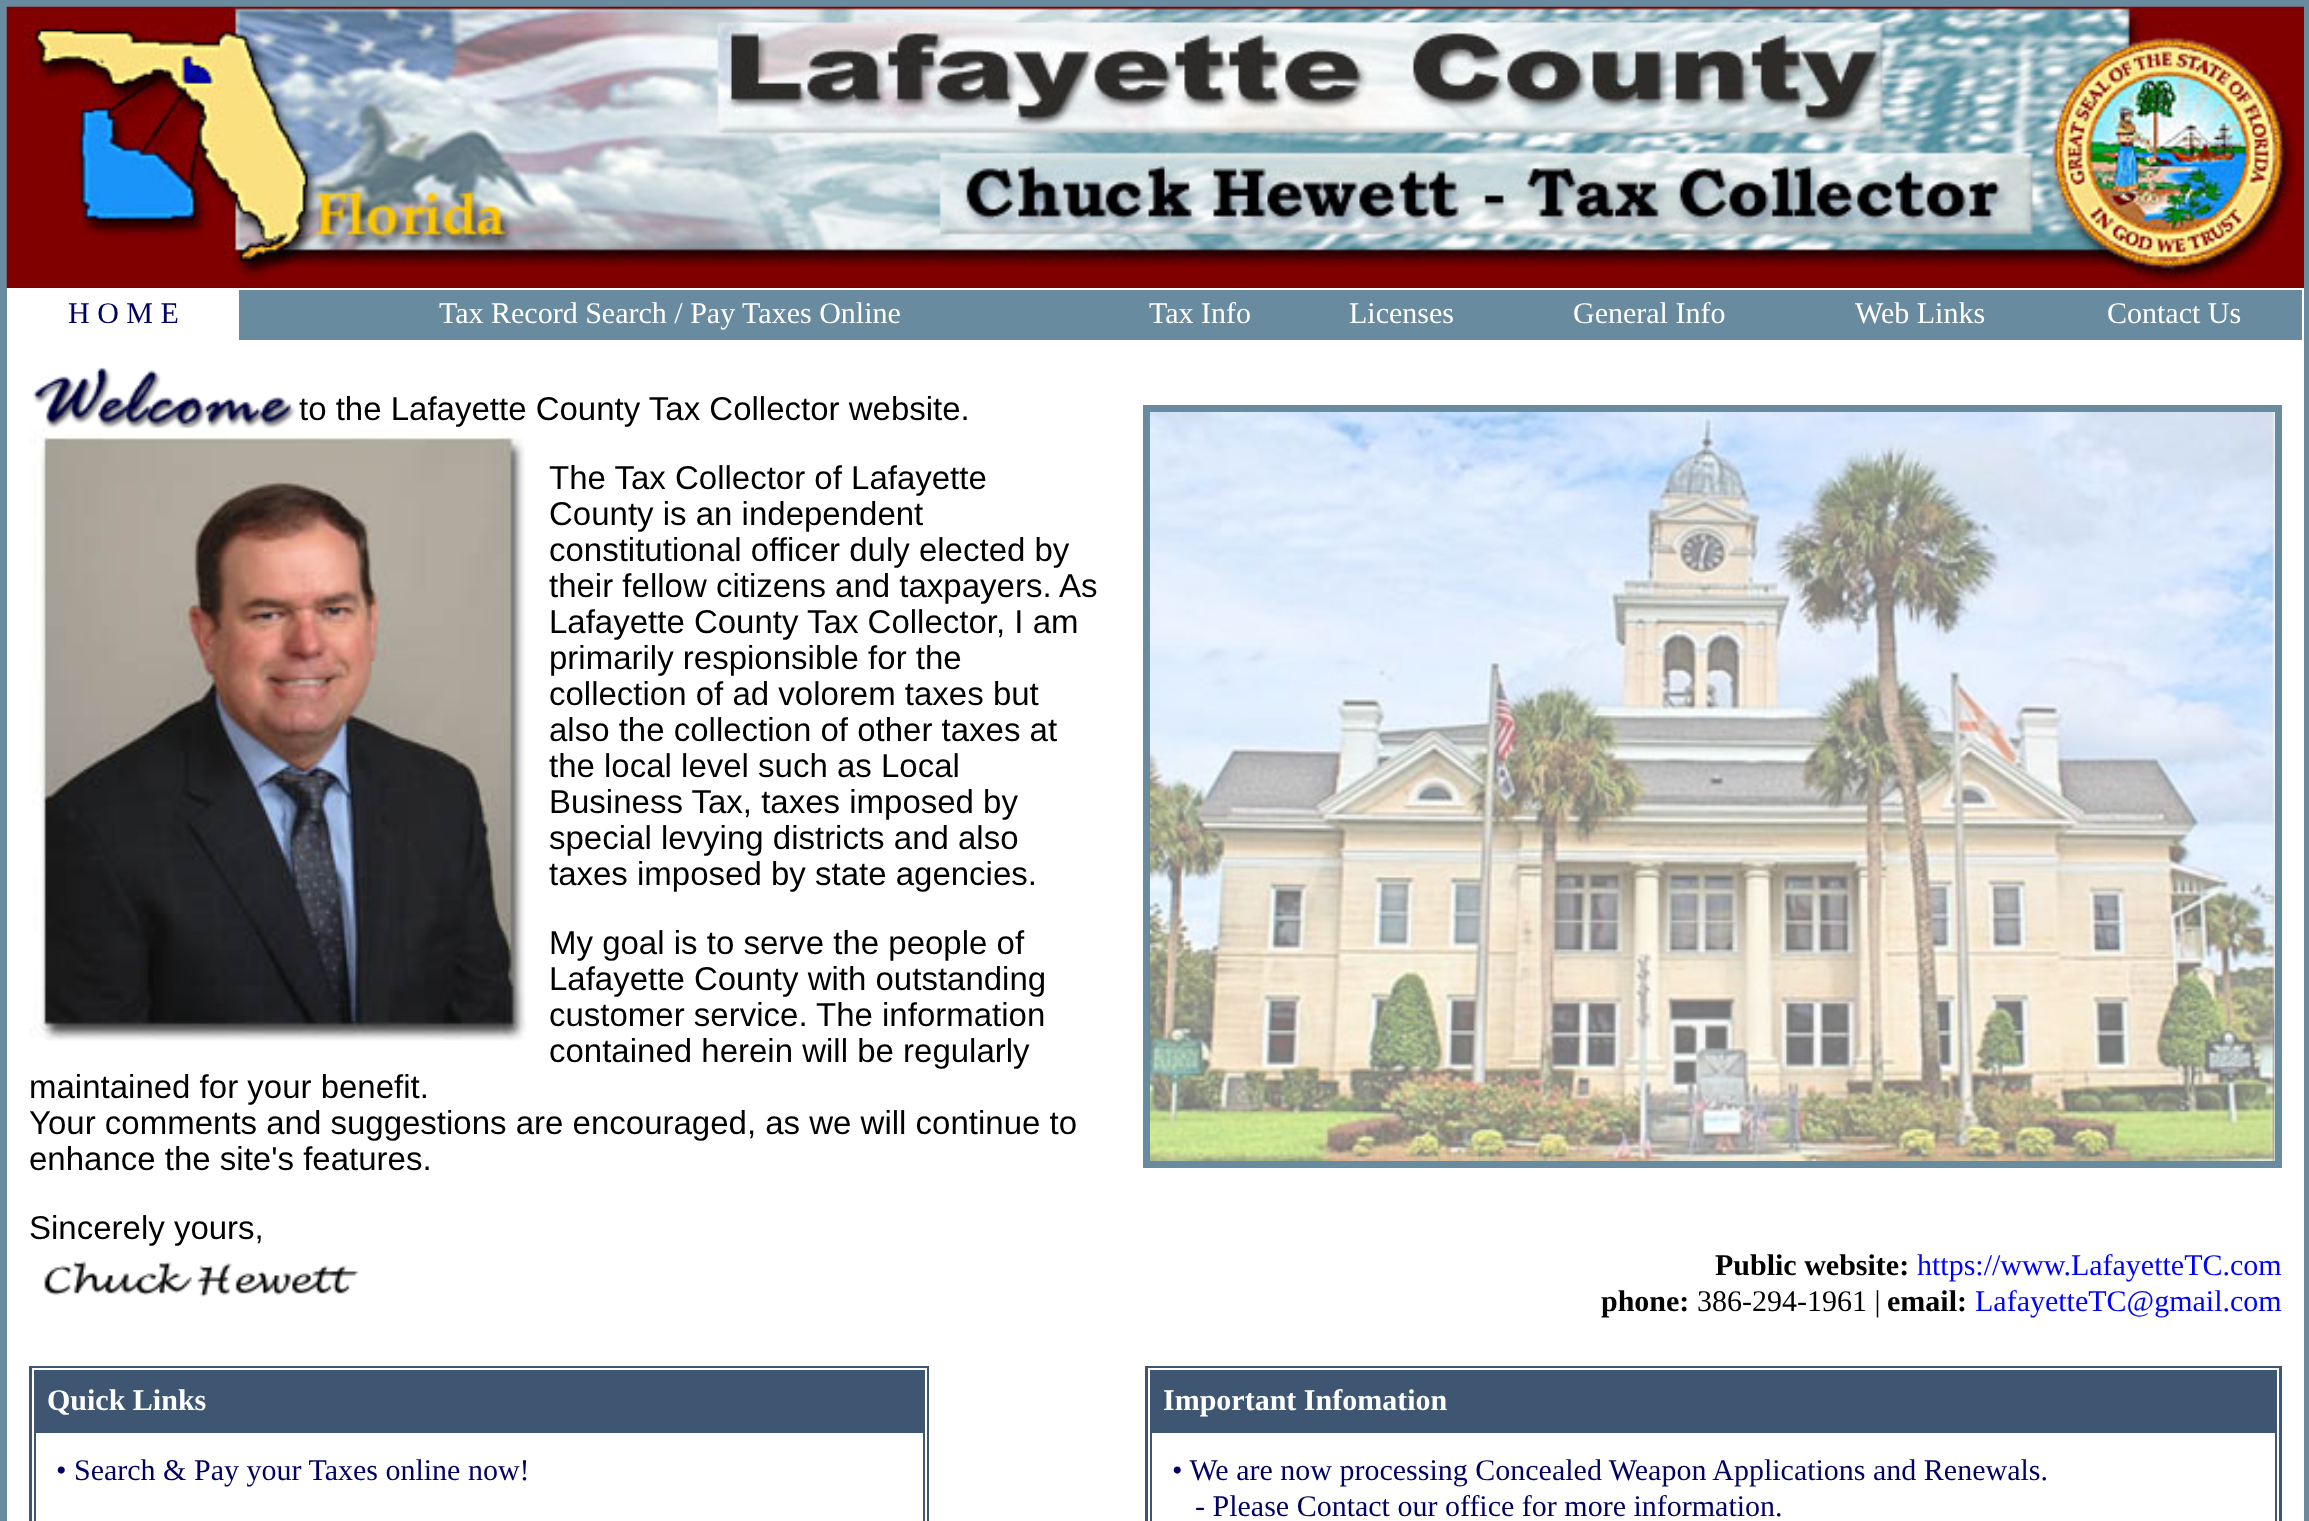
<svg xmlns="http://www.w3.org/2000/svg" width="2309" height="1521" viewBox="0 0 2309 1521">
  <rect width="100%" height="100%" fill="#ffffff"/>
  <rect x="3.5" y="3.5" width="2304" height="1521" fill="none" stroke="#698b9f" stroke-width="7"/>
  <image x="6" y="6" width="2298" height="282" href="img1.png"/>
  <rect x="239" y="290" width="2063" height="50" fill="#698b9f"/>
  <text x="68" y="323" font-family="Liberation Serif" font-size="30" fill="#000064">H O M E</text>
  <text x="439" y="323" font-family="Liberation Serif" font-size="30" fill="#ffffff">Tax Record Search / Pay Taxes Online</text>
  <text x="1149" y="323" font-family="Liberation Serif" font-size="30" fill="#ffffff">Tax Info</text>
  <text x="1349" y="323" font-family="Liberation Serif" font-size="30" fill="#ffffff">Licenses</text>
  <text x="1573" y="323" font-family="Liberation Serif" font-size="30" fill="#ffffff">General Info</text>
  <text x="1855" y="323" font-family="Liberation Serif" font-size="30" fill="#ffffff">Web Links</text>
  <text x="2107" y="323" font-family="Liberation Serif" font-size="30" fill="#ffffff">Contact Us</text>
  <image x="33" y="366" width="263" height="62" href="img2.png"/>
  <text x="299" y="420" font-family="Liberation Sans" font-size="33" fill="#000000">to the Lafayette County Tax Collector website.</text>
  <image x="29" y="428" width="498" height="613" href="img3.png"/>
  <text x="549" y="489" font-family="Liberation Sans" font-size="33" fill="#000000">The Tax Collector of Lafayette</text>
  <text x="549" y="525" font-family="Liberation Sans" font-size="33" fill="#000000">County is an independent</text>
  <text x="549" y="561" font-family="Liberation Sans" font-size="33" fill="#000000">constitutional officer duly elected by</text>
  <text x="549" y="597" font-family="Liberation Sans" font-size="33" fill="#000000">their fellow citizens and taxpayers. As</text>
  <text x="549" y="633" font-family="Liberation Sans" font-size="33" fill="#000000">Lafayette County Tax Collector, I am</text>
  <text x="549" y="669" font-family="Liberation Sans" font-size="33" fill="#000000">primarily respionsible for the</text>
  <text x="549" y="705" font-family="Liberation Sans" font-size="33" fill="#000000">collection of ad volorem taxes but</text>
  <text x="549" y="741" font-family="Liberation Sans" font-size="33" fill="#000000">also the collection of other taxes at</text>
  <text x="549" y="777" font-family="Liberation Sans" font-size="33" fill="#000000">the local level such as Local</text>
  <text x="549" y="813" font-family="Liberation Sans" font-size="33" fill="#000000">Business Tax, taxes imposed by</text>
  <text x="549" y="849" font-family="Liberation Sans" font-size="33" fill="#000000">special levying districts and also</text>
  <text x="549" y="885" font-family="Liberation Sans" font-size="33" fill="#000000">taxes imposed by state agencies.</text>
  <text x="549" y="954" font-family="Liberation Sans" font-size="33" fill="#000000">My goal is to serve the people of</text>
  <text x="549" y="990" font-family="Liberation Sans" font-size="33" fill="#000000">Lafayette County with outstanding</text>
  <text x="549" y="1026" font-family="Liberation Sans" font-size="33" fill="#000000">customer service.</text>
  <text x="816" y="1026" font-family="Liberation Sans" font-size="33" fill="#000000">The information</text>
  <text x="549" y="1062" font-family="Liberation Sans" font-size="33" fill="#000000">contained herein will be regularly</text>
  <text x="29" y="1098" font-family="Liberation Sans" font-size="33" fill="#000000">maintained for your benefit.</text>
  <text x="29" y="1134" font-family="Liberation Sans" font-size="33" fill="#000000">Your comments and suggestions are encouraged, as we will continue to</text>
  <text x="29" y="1170" font-family="Liberation Sans" font-size="33" fill="#000000">enhance the site's features.</text>
  <text x="29" y="1239" font-family="Liberation Sans" font-size="33" fill="#000000">Sincerely yours,</text>
  <image x="44" y="1261" width="315" height="36" href="img4.png"/>
  <rect x="1146.5" y="408.5" width="1132" height="756" fill="none" stroke="#698b9f" stroke-width="7"/>
  <image x="1149" y="412" width="1126" height="749" href="img5.png"/>
  <text x="1715" y="1275" font-family="Liberation Serif" font-size="30" font-weight="bold" fill="#000000">Public website:</text>
  <text x="1917" y="1275" font-family="Liberation Serif" font-size="30" fill="#0000ff">https://www.LafayetteTC.com</text>
  <text x="1601" y="1311" font-family="Liberation Serif" font-size="30" font-weight="bold" fill="#000000">phone:</text>
  <text x="1697" y="1311" font-family="Liberation Serif" font-size="30" fill="#000000">386-294-1961 |</text>
  <text x="1887" y="1311" font-family="Liberation Serif" font-size="30" font-weight="bold" fill="#000000">email:</text>
  <text x="1975" y="1311" font-family="Liberation Serif" font-size="30" fill="#0000ff">LafayetteTC@gmail.com</text>
  <rect x="29" y="1366" width="900" height="155" fill="#3e5672"/>
  <rect x="32" y="1368" width="895" height="153" fill="#ffffff"/>
  <rect x="34" y="1370" width="891" height="151" fill="#3e5672"/>
  <text x="47" y="1410" font-family="Liberation Serif" font-size="30" font-weight="bold" fill="#ffffff">Quick Links</text>
  <rect x="36" y="1433" width="887" height="88" fill="#ffffff"/>
  <text x="56" y="1480" font-family="Liberation Serif" font-size="30" fill="#000064">• Search &amp; Pay your Taxes online now!</text>
  <rect x="1145" y="1366" width="1137" height="155" fill="#3e5672"/>
  <rect x="1148" y="1368" width="1131" height="153" fill="#ffffff"/>
  <rect x="1150" y="1370" width="1127" height="151" fill="#3e5672"/>
  <text x="1163" y="1410" font-family="Liberation Serif" font-size="30" font-weight="bold" fill="#ffffff">Important Infomation</text>
  <rect x="1152" y="1433" width="1123" height="88" fill="#ffffff"/>
  <text x="1172" y="1480" font-family="Liberation Serif" font-size="30" fill="#000064">• We are now processing Concealed Weapon Applications and Renewals.</text>
  <text x="1195" y="1516" font-family="Liberation Serif" font-size="30" fill="#000064">- Please Contact our office for more information.</text>
</svg>
